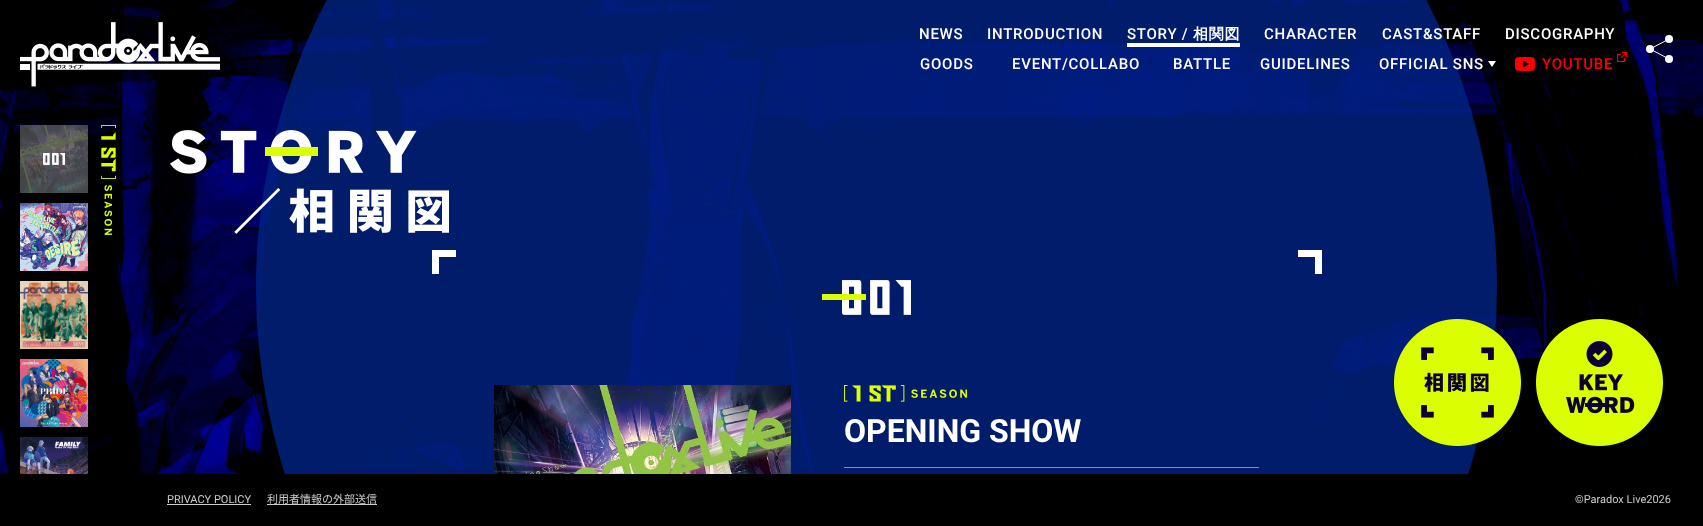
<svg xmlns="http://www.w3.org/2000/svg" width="1703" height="526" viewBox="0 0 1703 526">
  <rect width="100%" height="100%" fill="#ffffff"/>
  <image x="0" y="0" width="1703" height="474" href="img1.png"/>
  <image x="20" y="22" width="200" height="65" href="img2.png"/>
  <circle cx="876.5" cy="287.5" r="620.5" fill="#002384" fill-opacity="0.8"/>
  <text x="919" y="39" font-family="Roboto" font-size="15" font-weight="500" letter-spacing="0.75" fill="#ffffff">NEWS</text>
  <text x="987" y="39" font-family="Roboto" font-size="15" font-weight="500" letter-spacing="0.75" fill="#ffffff">INTRODUCTION</text>
  <text x="1127" y="39" font-family="Roboto" font-size="15" font-weight="500" letter-spacing="0.75" fill="#ffffff">STORY /</text>
  <text x="1193" y="39" font-family="WenQuanYi Zen Hei" font-size="15" font-weight="bold" letter-spacing="0.75" fill="#ffffff">相関図</text>
  <rect x="1127" y="43" width="113" height="4" fill="#ffffff"/>
  <text x="1264" y="39" font-family="Roboto" font-size="15" font-weight="500" letter-spacing="0.75" fill="#ffffff">CHARACTER</text>
  <text x="1382" y="39" font-family="Roboto" font-size="15" font-weight="500" letter-spacing="0.75" fill="#ffffff">CAST&amp;STAFF</text>
  <text x="1505" y="39" font-family="Roboto" font-size="15" font-weight="500" letter-spacing="0.75" fill="#ffffff">DISCOGRAPHY</text>
  <text x="920" y="69" font-family="Roboto" font-size="15" font-weight="500" letter-spacing="0.75" fill="#ffffff">GOODS</text>
  <text x="1012" y="69" font-family="Roboto" font-size="15" font-weight="500" letter-spacing="0.75" fill="#ffffff">EVENT/COLLABO</text>
  <text x="1173" y="69" font-family="Roboto" font-size="15" font-weight="500" letter-spacing="0.75" fill="#ffffff">BATTLE</text>
  <text x="1260" y="69" font-family="Roboto" font-size="15" font-weight="500" letter-spacing="0.75" fill="#ffffff">GUIDELINES</text>
  <text x="1379" y="69" font-family="Roboto" font-size="15" font-weight="500" letter-spacing="0.75" fill="#ffffff">OFFICIAL SNS</text>
  <path d="M1488 61H1496L1492 67Z" fill="#ffffff"/>
  <image x="1515" y="57" width="20" height="14" href="img3.png"/>
  <text x="1542" y="69" font-family="Roboto" font-size="15" font-weight="500" letter-spacing="0.75" fill="#ff0000">YOUTUBE</text>
  <image x="1617" y="52" width="10" height="10" href="img4.png"/>
  <circle cx="1669" cy="39" r="4" fill="#ffffff"/>
  <circle cx="1650" cy="49" r="4" fill="#ffffff"/>
  <circle cx="1669" cy="59" r="4" fill="#ffffff"/>
  <path d="M1669 59L1650 49L1669 39" fill="none" stroke="#ffffff"/>
  <image x="20" y="125" width="68" height="68" href="img5.png"/>
  <image x="43" y="153" width="22" height="12" href="img6.png"/>
  <image x="20" y="203" width="68" height="68" href="img7.png"/>
  <image x="20" y="281" width="68" height="68" href="img8.png"/>
  <image x="20" y="359" width="68" height="68" href="img9.png"/>
  <image x="20" y="437" width="68" height="37" href="img10.png"/>
  <image x="101" y="125" width="15" height="110" href="img11.png"/>
  <image x="170" y="130" width="279" height="104" href="img12.png"/>
  <rect x="265" y="147" width="53" height="9" fill="#dcff00"/>
  <image x="1394" y="319" width="127" height="127" href="img13.png"/>
  <image x="1536" y="319" width="127" height="127" href="img14.png"/>
  <path d="M1298 250V257H1315V274H1322V250Z" fill="#ffffff"/>
  <path d="M456 250H432V274H439V257H456Z" fill="#ffffff"/>
  <image x="842" y="280" width="69" height="35" href="img15.png"/>
  <rect x="822" y="294" width="44" height="6" fill="#dcff00"/>
  <image x="494" y="385" width="297" height="89" href="img16.png"/>
  <image x="844" y="385" width="123" height="17" href="img17.png"/>
  <text x="844" y="442" font-family="Roboto" font-size="32" font-weight="bold" fill="#ffffff">OPENING SHOW</text>
  <rect x="844" y="467" width="415" height="1" fill="#ffffff" fill-opacity="0.5"/>
  <rect x="0" y="474" width="1703" height="52" fill="#000000"/>
  <text x="167" y="503" font-family="Roboto" font-size="11" fill="#cccccc">PRIVACY POLICY</text>
  <rect x="167" y="504" width="84" height="1" fill="#cccccc"/>
  <text x="267" y="503" font-family="Noto Sans JP" font-size="11" font-weight="100" fill="#cccccc">利用者情報の外部送信</text>
  <rect x="267" y="504" width="110" height="1" fill="#cccccc"/>
  <text x="1575" y="503" font-family="Roboto" font-size="11" fill="#cccccc">©Paradox Live2026</text>
</svg>
